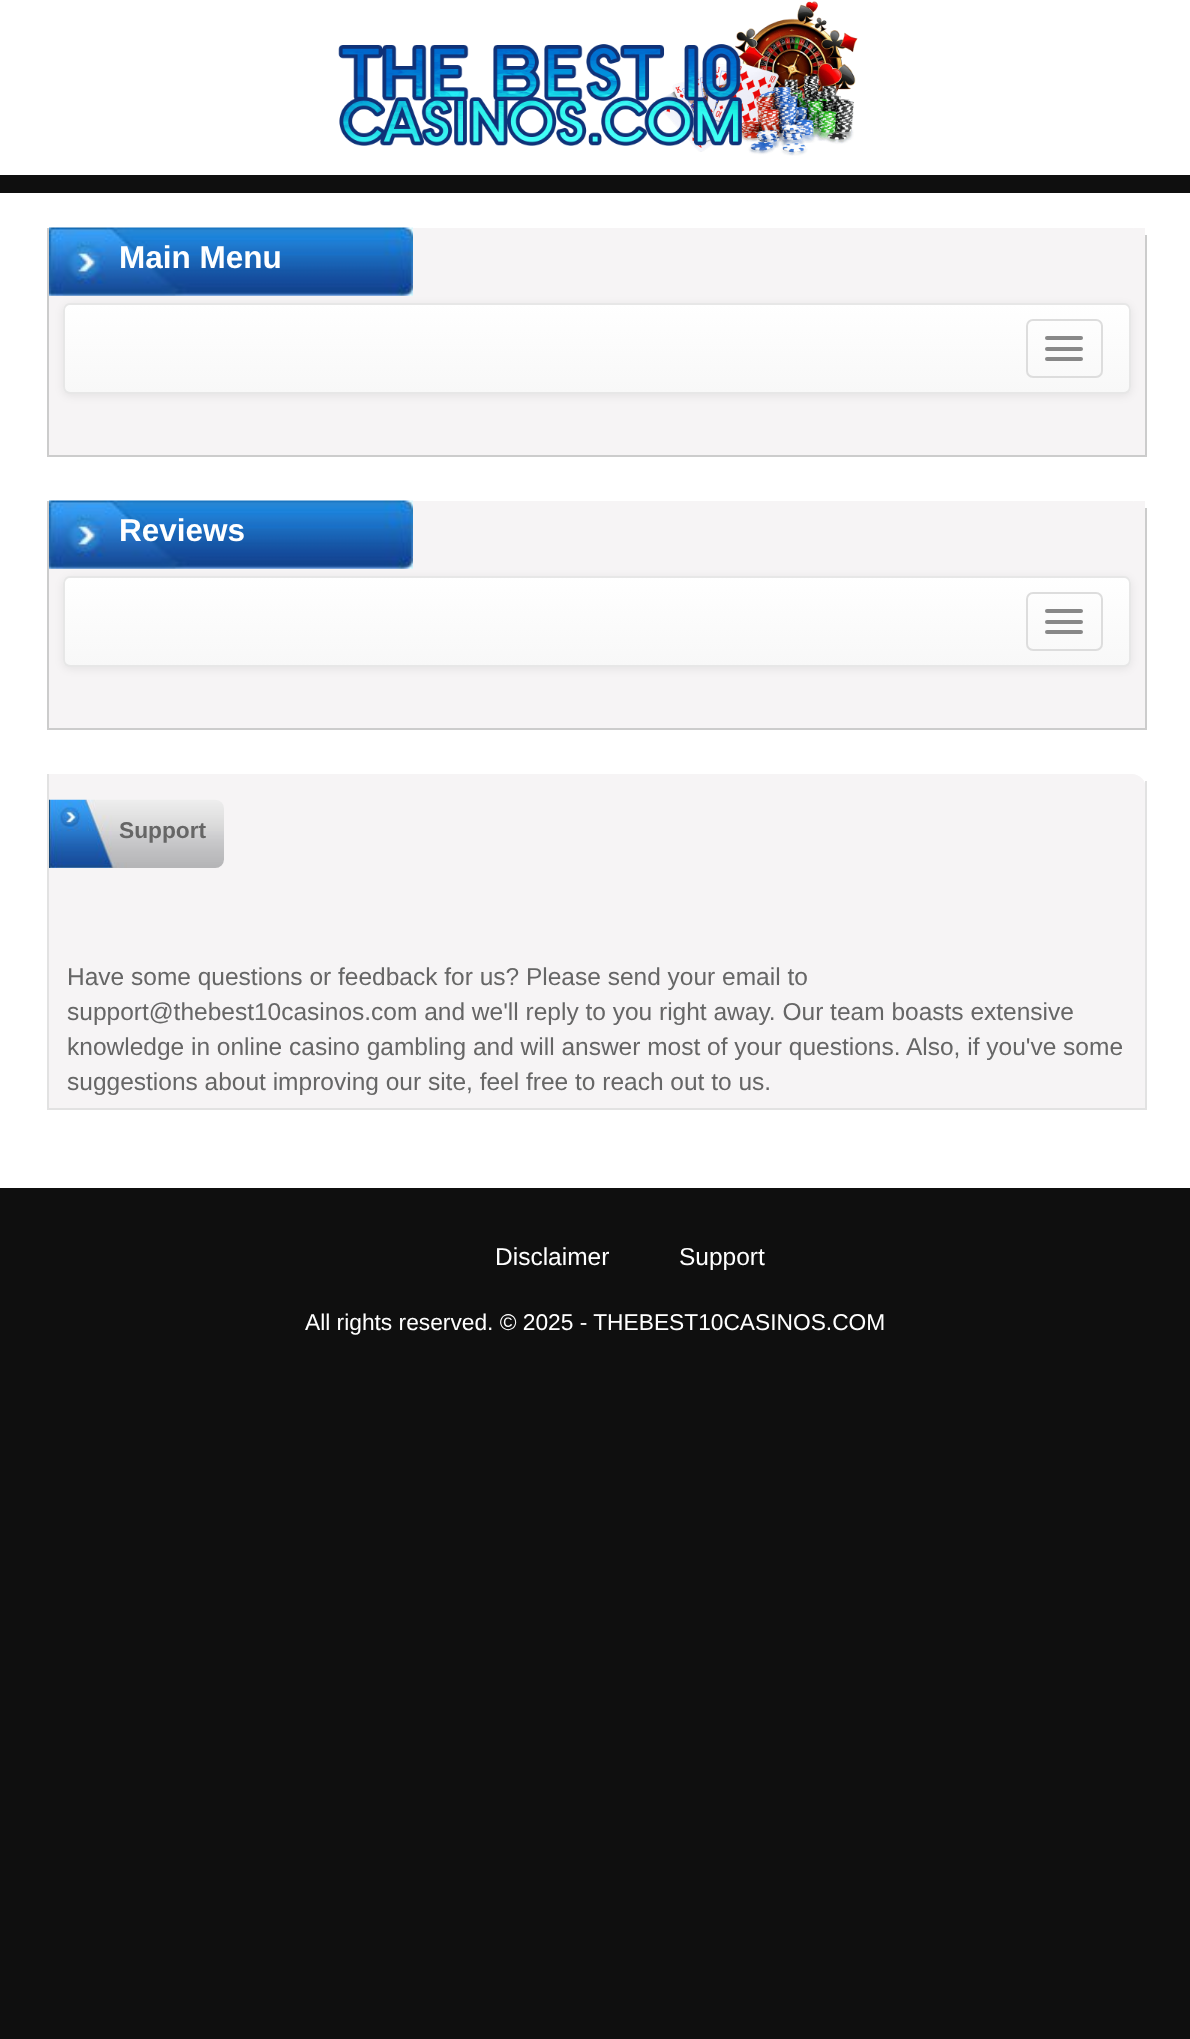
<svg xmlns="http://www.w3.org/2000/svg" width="1190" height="2039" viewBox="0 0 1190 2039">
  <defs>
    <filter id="blur1" x="-50%" y="-200%" width="200%" height="500%"><feGaussianBlur stdDeviation="4.5"/></filter>
    <clipPath id="clip1"><rect x="63" y="303" width="1068" height="91" rx="7"/></clipPath>
    <linearGradient id="g1" gradientUnits="userSpaceOnUse" x1="597" y1="304" x2="597" y2="392"><stop offset="0" stop-color="#ffffff"/><stop offset="1" stop-color="#f8f8f8"/></linearGradient>
    <clipPath id="clip2"><rect x="63" y="576" width="1068" height="91" rx="7"/></clipPath>
    <linearGradient id="g2" gradientUnits="userSpaceOnUse" x1="597" y1="577" x2="597" y2="665"><stop offset="0" stop-color="#ffffff"/><stop offset="1" stop-color="#f8f8f8"/></linearGradient>
  </defs>
  <rect width="100%" height="100%" fill="#0f0f0f"/>
  <rect x="0" y="0" width="1190" height="175" fill="#ffffff"/>
  <image x="338" y="1" width="520" height="155" href="img1.png"/>
  <rect x="0" y="193" width="1190" height="995" fill="#ffffff"/>
  <path d="M47 228H1132C1139.5 228 1146 234.5 1146 242V457H47Z" fill="#f6f4f5"/>
  <rect x="1145" y="235" width="2" height="222" fill="#cccccc"/>
  <rect x="47" y="455" width="1099" height="2" fill="#cccccc"/>
  <rect x="47" y="228" width="2" height="229" fill="#cccccc"/>
  <rect x="1134" y="228" width="11" height="8" fill="#f6f4f5"/>
  <image x="49" y="227" width="364" height="69" href="img2.png"/>
  <text x="119" y="268" font-family="Liberation Sans" font-size="31.5" font-weight="bold" fill="#ffffff">Main Menu</text>
  <rect x="63" y="305" width="1068" height="91" rx="7" fill="#000000" fill-opacity="0.07" filter="url(#blur1)"/>
  <g clip-path="url(#clip1)">
    <rect x="63" y="305" width="1068" height="87" fill="url(#g1)"/>
  </g>
  <rect x="64" y="304" width="1066" height="89" rx="6" fill="none" stroke="#e7e7e7" stroke-width="2"/>
  <rect x="1027" y="320" width="75" height="57" rx="6" fill="none" stroke="#dddddd" stroke-width="2"/>
  <rect x="1045" y="336" width="38" height="4" rx="2" fill="#888888"/>
  <rect x="1045" y="347" width="38" height="4" rx="2" fill="#888888"/>
  <rect x="1045" y="357" width="38" height="4" rx="2" fill="#888888"/>
  <path d="M47 501H1132C1139.5 501 1146 507.5 1146 515V730H47Z" fill="#f6f4f5"/>
  <rect x="1145" y="508" width="2" height="222" fill="#cccccc"/>
  <rect x="47" y="728" width="1099" height="2" fill="#cccccc"/>
  <rect x="47" y="501" width="2" height="229" fill="#cccccc"/>
  <rect x="1134" y="501" width="11" height="8" fill="#f6f4f5"/>
  <image x="49" y="500" width="364" height="69" href="img2.png"/>
  <text x="119" y="541" font-family="Liberation Sans" font-size="31.5" font-weight="bold" fill="#ffffff">Reviews</text>
  <rect x="63" y="578" width="1068" height="91" rx="7" fill="#000000" fill-opacity="0.07" filter="url(#blur1)"/>
  <g clip-path="url(#clip2)">
    <rect x="63" y="578" width="1068" height="87" fill="url(#g2)"/>
  </g>
  <rect x="64" y="577" width="1066" height="89" rx="6" fill="none" stroke="#e7e7e7" stroke-width="2"/>
  <rect x="1027" y="593" width="75" height="57" rx="6" fill="none" stroke="#dddddd" stroke-width="2"/>
  <rect x="1045" y="609" width="38" height="4" rx="2" fill="#888888"/>
  <rect x="1045" y="620" width="38" height="4" rx="2" fill="#888888"/>
  <rect x="1045" y="630" width="38" height="4" rx="2" fill="#888888"/>
  <path d="M47 774H1132C1139.5 774 1146 780.5 1146 788V1110H47Z" fill="#f6f4f5"/>
  <rect x="1145" y="781" width="2" height="329" fill="#e2e2e2"/>
  <rect x="47" y="1108" width="1099" height="2" fill="#e2e2e2"/>
  <rect x="47" y="774" width="2" height="336" fill="#e2e2e2"/>
  <image x="49" y="799" width="175" height="69" href="img3.png"/>
  <text x="119" y="838" font-family="Liberation Sans" font-size="22.75" font-weight="bold" fill="#666666">Support</text>
  <text x="67" y="985" font-family="Liberation Sans" font-size="24.5" fill="#666666">Have some questions or feedback for us? Please send your email to</text>
  <text x="67" y="1020" font-family="Liberation Sans" font-size="24.5" fill="#666666">support@thebest10casinos.com and we'll reply to you right away. Our team boasts extensive</text>
  <text x="67" y="1055" font-family="Liberation Sans" font-size="24.5" fill="#666666">knowledge in online casino gambling and will answer most of your questions. Also, if you've some</text>
  <text x="67" y="1090" font-family="Liberation Sans" font-size="24.5" fill="#666666">suggestions about improving our site, feel free to reach out to us.</text>
  <text x="495" y="1265" font-family="Liberation Sans" font-size="24.5" fill="#ffffff">Disclaimer</text>
  <text x="679" y="1265" font-family="Liberation Sans" font-size="24.5" fill="#ffffff">Support</text>
  <text x="305" y="1330" font-family="Liberation Sans" font-size="22.75" fill="#ffffff">All rights reserved. © 2025 - THEBEST10CASINOS.COM</text>
</svg>
